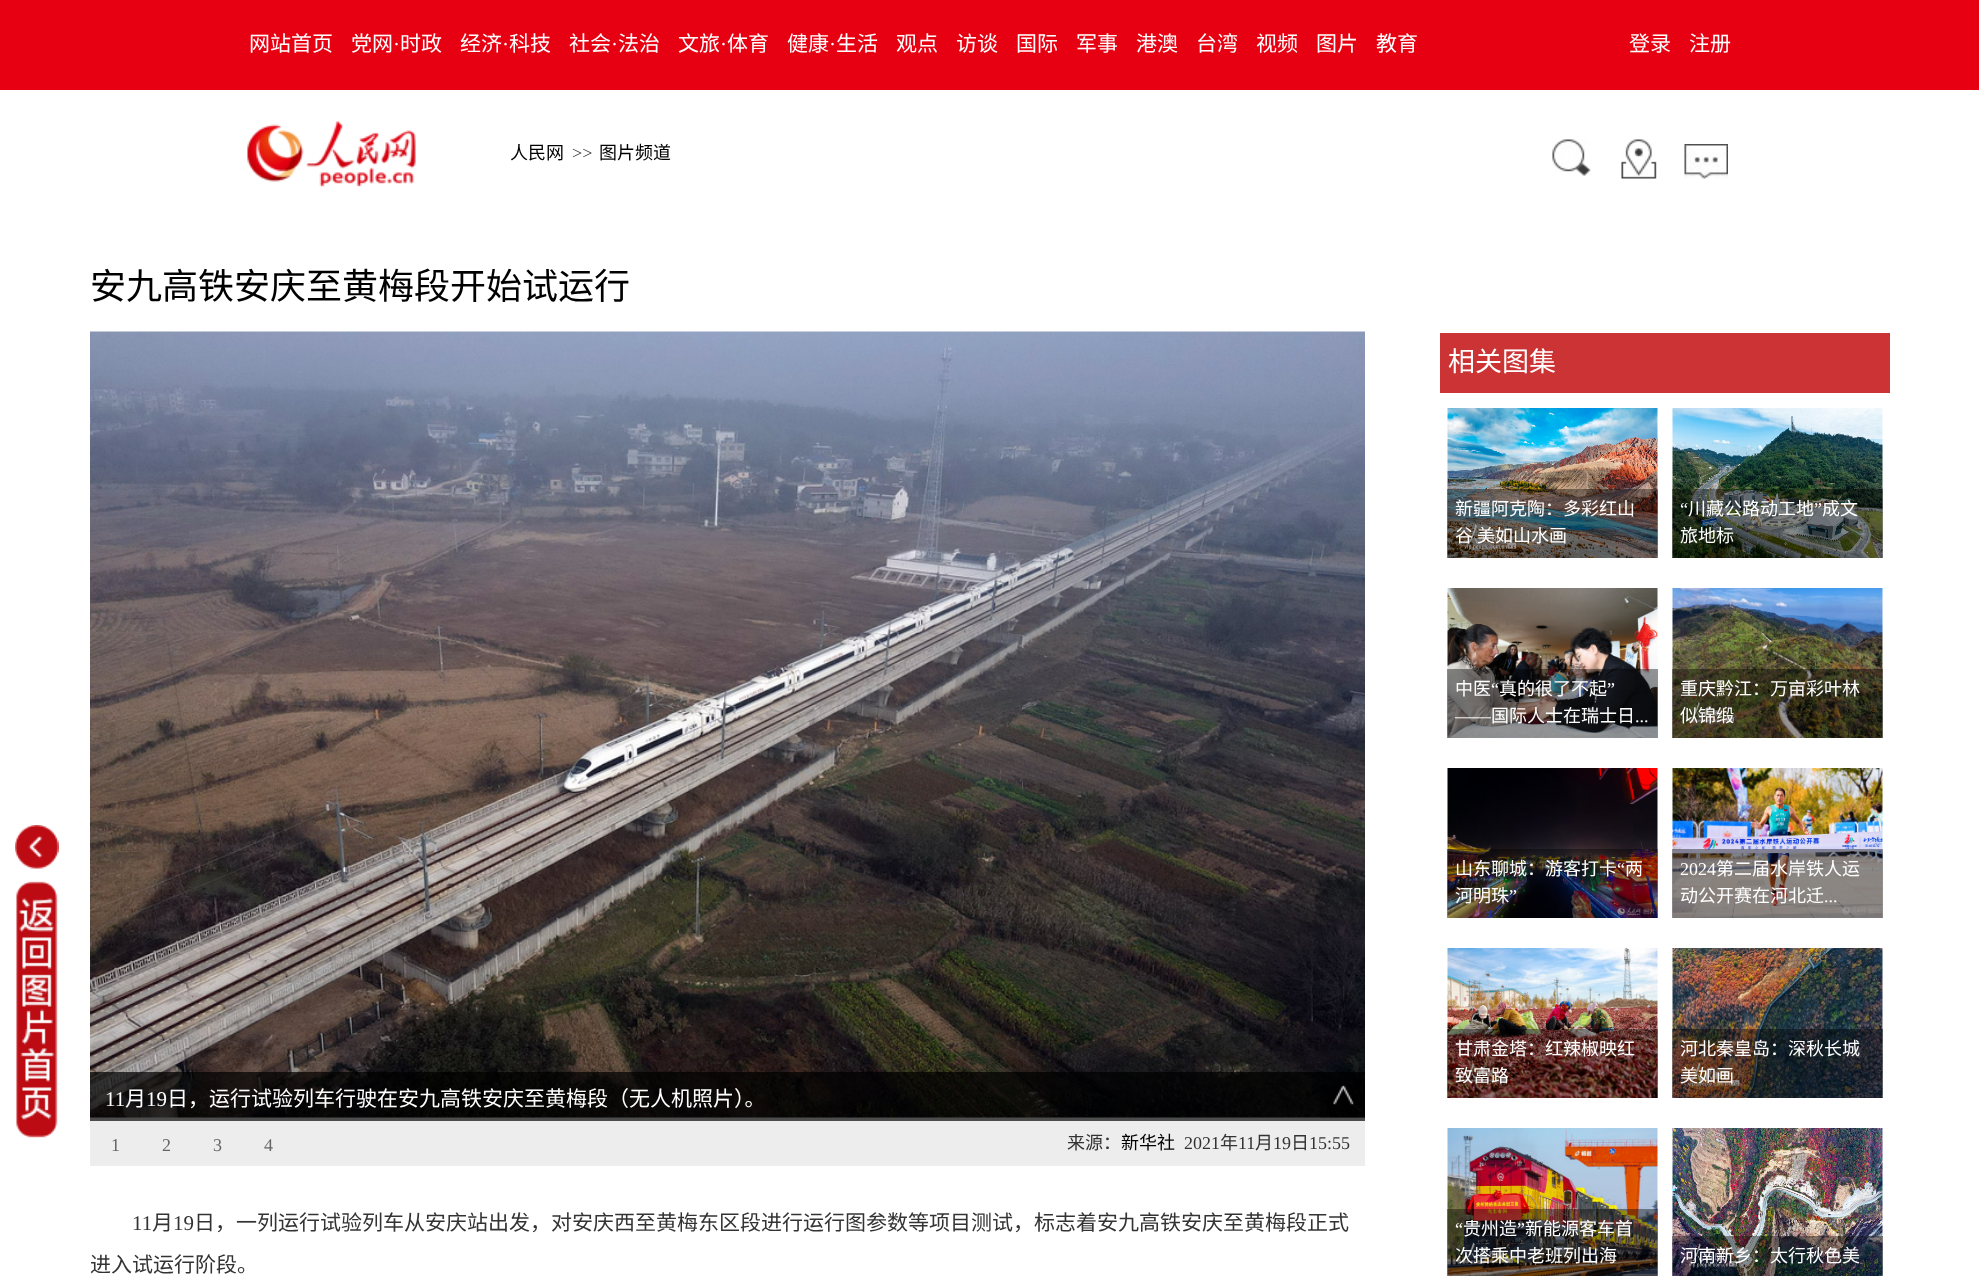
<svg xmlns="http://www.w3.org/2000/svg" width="1979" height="1276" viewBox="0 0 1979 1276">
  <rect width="100%" height="100%" fill="#ffffff"/>
  <rect x="0" y="0" width="1979" height="90" fill="#e60012"/>
  <text x="249" y="51" font-family="Noto Sans CJK SC" font-size="21" fill="#ffffff">网站首页</text>
  <text x="351" y="51" font-family="Noto Sans CJK SC" font-size="21" fill="#ffffff">党网</text>
  <text x="393" y="51" font-family="Liberation Serif" font-size="21" fill="#ffffff">·</text>
  <text x="400" y="51" font-family="Noto Sans CJK SC" font-size="21" fill="#ffffff">时政</text>
  <text x="460" y="51" font-family="Noto Sans CJK SC" font-size="21" fill="#ffffff">经济</text>
  <text x="502" y="51" font-family="Liberation Serif" font-size="21" fill="#ffffff">·</text>
  <text x="509" y="51" font-family="Noto Sans CJK SC" font-size="21" fill="#ffffff">科技</text>
  <text x="569" y="51" font-family="Noto Sans CJK SC" font-size="21" fill="#ffffff">社会</text>
  <text x="611" y="51" font-family="Liberation Serif" font-size="21" fill="#ffffff">·</text>
  <text x="618" y="51" font-family="Noto Sans CJK SC" font-size="21" fill="#ffffff">法治</text>
  <text x="678" y="51" font-family="Noto Sans CJK SC" font-size="21" fill="#ffffff">文旅</text>
  <text x="720" y="51" font-family="Liberation Serif" font-size="21" fill="#ffffff">·</text>
  <text x="727" y="51" font-family="Noto Sans CJK SC" font-size="21" fill="#ffffff">体育</text>
  <text x="787" y="51" font-family="Noto Sans CJK SC" font-size="21" fill="#ffffff">健康</text>
  <text x="829" y="51" font-family="Liberation Serif" font-size="21" fill="#ffffff">·</text>
  <text x="836" y="51" font-family="Noto Sans CJK SC" font-size="21" fill="#ffffff">生活</text>
  <text x="896" y="51" font-family="Noto Sans CJK SC" font-size="21" fill="#ffffff">观点</text>
  <text x="956" y="51" font-family="Noto Sans CJK SC" font-size="21" fill="#ffffff">访谈</text>
  <text x="1016" y="51" font-family="Noto Sans CJK SC" font-size="21" fill="#ffffff">国际</text>
  <text x="1076" y="51" font-family="Noto Sans CJK SC" font-size="21" fill="#ffffff">军事</text>
  <text x="1136" y="51" font-family="Noto Sans CJK SC" font-size="21" fill="#ffffff">港澳</text>
  <text x="1196" y="51" font-family="Noto Sans CJK SC" font-size="21" fill="#ffffff">台湾</text>
  <text x="1256" y="51" font-family="Noto Sans CJK SC" font-size="21" fill="#ffffff">视频</text>
  <text x="1316" y="51" font-family="Noto Sans CJK SC" font-size="21" fill="#ffffff">图片</text>
  <text x="1376" y="51" font-family="Noto Sans CJK SC" font-size="21" fill="#ffffff">教育</text>
  <text x="1629" y="51" font-family="Noto Sans CJK SC" font-size="21" fill="#ffffff">登录</text>
  <text x="1689" y="51" font-family="Noto Sans CJK SC" font-size="21" fill="#ffffff">注册</text>
  <image x="247" y="121" width="169" height="66" href="img1.png"/>
  <text x="510" y="159" font-family="Noto Sans CJK SC" font-size="18" fill="#000000">人民网</text>
  <text x="572" y="159" font-family="Liberation Serif" font-size="18" fill="#333333">&gt;&gt;</text>
  <text x="599" y="159" font-family="Noto Sans CJK SC" font-size="18" fill="#000000">图片频道</text>
  <image x="1552" y="139" width="39" height="37" href="img2.png"/>
  <image x="1621" y="139" width="36" height="40" href="img3.png"/>
  <image x="1684" y="144" width="44" height="35" href="img4.png"/>
  <image x="15" y="825" width="44" height="313" href="img5.png"/>
  <text x="90" y="299" font-family="Noto Sans CJK SC" font-size="36" fill="#000000">安九高铁安庆至黄梅段开始试运行</text>
  <image x="90" y="331" width="1275" height="787" href="img6.png"/>
  <rect x="90" y="1072" width="1275" height="49" fill="#000000" fill-opacity="0.7"/>
  <text x="105" y="1106" font-family="Liberation Serif" font-size="21" fill="#ffffff">11</text>
  <text x="125" y="1106" font-family="Noto Sans CJK SC" font-size="21" fill="#ffffff">月</text>
  <text x="146" y="1106" font-family="Liberation Serif" font-size="21" fill="#ffffff">19</text>
  <text x="167" y="1106" font-family="Noto Sans CJK SC" font-size="21" fill="#ffffff">日，运行试验列车行驶在安九高铁安庆至黄梅段（无人机照片）。</text>
  <image x="1320" y="1085" width="45" height="33" href="img7.png"/>
  <rect x="90" y="1121" width="1275" height="45" fill="#ededed"/>
  <text x="111" y="1151" font-family="Liberation Serif" font-size="18" fill="#666666">1</text>
  <text x="162" y="1151" font-family="Liberation Serif" font-size="18" fill="#666666">2</text>
  <text x="213" y="1151" font-family="Liberation Serif" font-size="18" fill="#666666">3</text>
  <text x="264" y="1151" font-family="Liberation Serif" font-size="18" fill="#666666">4</text>
  <text x="1067" y="1149" font-family="Noto Sans CJK SC" font-size="18" fill="#333333">来源：</text>
  <text x="1121" y="1149" font-family="Noto Sans CJK SC" font-size="18" fill="#000000">新华社</text>
  <text x="1184" y="1149" font-family="Liberation Serif" font-size="18" fill="#333333">2021</text>
  <text x="1220" y="1149" font-family="Noto Sans CJK SC" font-size="18" fill="#333333">年</text>
  <text x="1238" y="1149" font-family="Liberation Serif" font-size="18" fill="#333333">11</text>
  <text x="1255" y="1149" font-family="Noto Sans CJK SC" font-size="18" fill="#333333">月</text>
  <text x="1273" y="1149" font-family="Liberation Serif" font-size="18" fill="#333333">19</text>
  <text x="1291" y="1149" font-family="Noto Sans CJK SC" font-size="18" fill="#333333">日</text>
  <text x="1309" y="1149" font-family="Liberation Serif" font-size="18" fill="#333333">15:55</text>
  <text x="132" y="1230" font-family="Liberation Serif" font-size="21" fill="#333333">11</text>
  <text x="152" y="1230" font-family="Noto Sans CJK SC" font-size="21" fill="#333333">月</text>
  <text x="173" y="1230" font-family="Liberation Serif" font-size="21" fill="#333333">19</text>
  <text x="194" y="1230" font-family="Noto Sans CJK SC" font-size="21" fill="#333333">日，一列运行试验列车从安庆站出发，对安庆西至黄梅东区段进行运行图参数等项目测试，标志着安九高铁安庆至黄梅段正式</text>
  <text x="90" y="1272" font-family="Noto Sans CJK SC" font-size="21" fill="#333333">进入试运行阶段。</text>
  <rect x="1440" y="333" width="450" height="60" fill="#cc3335"/>
  <text x="1448" y="371" font-family="Noto Sans CJK SC" font-size="27" fill="#ffffff">相关图集</text>
  <image x="1447" y="408" width="211" height="150" href="img8.png"/>
  <rect x="1447" y="489" width="211" height="69" fill="#000000" fill-opacity="0.4"/>
  <text x="1455" y="515" font-family="Noto Sans CJK SC" font-size="18" fill="#ffffff">新疆阿克陶：多彩红山</text>
  <text x="1455" y="542" font-family="Noto Sans CJK SC" font-size="18" fill="#ffffff">谷 美如山水画</text>
  <image x="1672" y="408" width="211" height="150" href="img9.png"/>
  <rect x="1672" y="489" width="211" height="69" fill="#000000" fill-opacity="0.4"/>
  <text x="1680" y="515" font-family="Liberation Serif" font-size="18" fill="#ffffff">“</text>
  <text x="1688" y="515" font-family="Noto Sans CJK SC" font-size="18" fill="#ffffff">川藏公路动工地</text>
  <text x="1814" y="515" font-family="Liberation Serif" font-size="18" fill="#ffffff">”</text>
  <text x="1822" y="515" font-family="Noto Sans CJK SC" font-size="18" fill="#ffffff">成文</text>
  <text x="1680" y="542" font-family="Noto Sans CJK SC" font-size="18" fill="#ffffff">旅地标</text>
  <image x="1447" y="588" width="211" height="150" href="img10.png"/>
  <rect x="1447" y="669" width="211" height="69" fill="#000000" fill-opacity="0.4"/>
  <text x="1455" y="695" font-family="Noto Sans CJK SC" font-size="18" fill="#ffffff">中医</text>
  <text x="1491" y="695" font-family="Liberation Serif" font-size="18" fill="#ffffff">“</text>
  <text x="1499" y="695" font-family="Noto Sans CJK SC" font-size="18" fill="#ffffff">真的很了不起</text>
  <text x="1607" y="695" font-family="Liberation Serif" font-size="18" fill="#ffffff">”</text>
  <text x="1455" y="722" font-family="Liberation Serif" font-size="18" fill="#ffffff">——</text>
  <text x="1491" y="722" font-family="Noto Sans CJK SC" font-size="18" fill="#ffffff">国际人士在瑞士日</text>
  <text x="1635" y="722" font-family="Liberation Serif" font-size="18" fill="#ffffff">...</text>
  <image x="1672" y="588" width="211" height="150" href="img11.png"/>
  <rect x="1672" y="669" width="211" height="69" fill="#000000" fill-opacity="0.4"/>
  <text x="1680" y="695" font-family="Noto Sans CJK SC" font-size="18" fill="#ffffff">重庆黔江：万亩彩叶林</text>
  <text x="1680" y="722" font-family="Noto Sans CJK SC" font-size="18" fill="#ffffff">似锦缎</text>
  <image x="1447" y="768" width="211" height="150" href="img12.png"/>
  <rect x="1447" y="849" width="211" height="69" fill="#000000" fill-opacity="0.4"/>
  <text x="1455" y="875" font-family="Noto Sans CJK SC" font-size="18" fill="#ffffff">山东聊城：游客打卡</text>
  <text x="1617" y="875" font-family="Liberation Serif" font-size="18" fill="#ffffff">“</text>
  <text x="1625" y="875" font-family="Noto Sans CJK SC" font-size="18" fill="#ffffff">两</text>
  <text x="1455" y="902" font-family="Noto Sans CJK SC" font-size="18" fill="#ffffff">河明珠</text>
  <text x="1509" y="902" font-family="Liberation Serif" font-size="18" fill="#ffffff">”</text>
  <image x="1672" y="768" width="211" height="150" href="img13.png"/>
  <rect x="1672" y="849" width="211" height="69" fill="#000000" fill-opacity="0.4"/>
  <text x="1680" y="875" font-family="Liberation Serif" font-size="18" fill="#ffffff">2024</text>
  <text x="1716" y="875" font-family="Noto Sans CJK SC" font-size="18" fill="#ffffff">第二届水岸铁人运</text>
  <text x="1680" y="902" font-family="Noto Sans CJK SC" font-size="18" fill="#ffffff">动公开赛在河北迁</text>
  <text x="1824" y="902" font-family="Liberation Serif" font-size="18" fill="#ffffff">...</text>
  <image x="1447" y="948" width="211" height="150" href="img14.png"/>
  <rect x="1447" y="1029" width="211" height="69" fill="#000000" fill-opacity="0.4"/>
  <text x="1455" y="1055" font-family="Noto Sans CJK SC" font-size="18" fill="#ffffff">甘肃金塔：红辣椒映红</text>
  <text x="1455" y="1082" font-family="Noto Sans CJK SC" font-size="18" fill="#ffffff">致富路</text>
  <image x="1672" y="948" width="211" height="150" href="img15.png"/>
  <rect x="1672" y="1029" width="211" height="69" fill="#000000" fill-opacity="0.4"/>
  <text x="1680" y="1055" font-family="Noto Sans CJK SC" font-size="18" fill="#ffffff">河北秦皇岛：深秋长城</text>
  <text x="1680" y="1082" font-family="Noto Sans CJK SC" font-size="18" fill="#ffffff">美如画</text>
  <image x="1447" y="1128" width="211" height="148" href="img16.png"/>
  <rect x="1447" y="1209" width="211" height="67" fill="#000000" fill-opacity="0.4"/>
  <text x="1455" y="1235" font-family="Liberation Serif" font-size="18" fill="#ffffff">“</text>
  <text x="1463" y="1235" font-family="Noto Sans CJK SC" font-size="18" fill="#ffffff">贵州造</text>
  <text x="1517" y="1235" font-family="Liberation Serif" font-size="18" fill="#ffffff">”</text>
  <text x="1525" y="1235" font-family="Noto Sans CJK SC" font-size="18" fill="#ffffff">新能源客车首</text>
  <text x="1455" y="1262" font-family="Noto Sans CJK SC" font-size="18" fill="#ffffff">次搭乘中老班列出海</text>
  <image x="1672" y="1128" width="211" height="148" href="img17.png"/>
  <rect x="1672" y="1236" width="211" height="40" fill="#000000" fill-opacity="0.4"/>
  <text x="1680" y="1262" font-family="Noto Sans CJK SC" font-size="18" fill="#ffffff">河南新乡：太行秋色美</text>
</svg>
